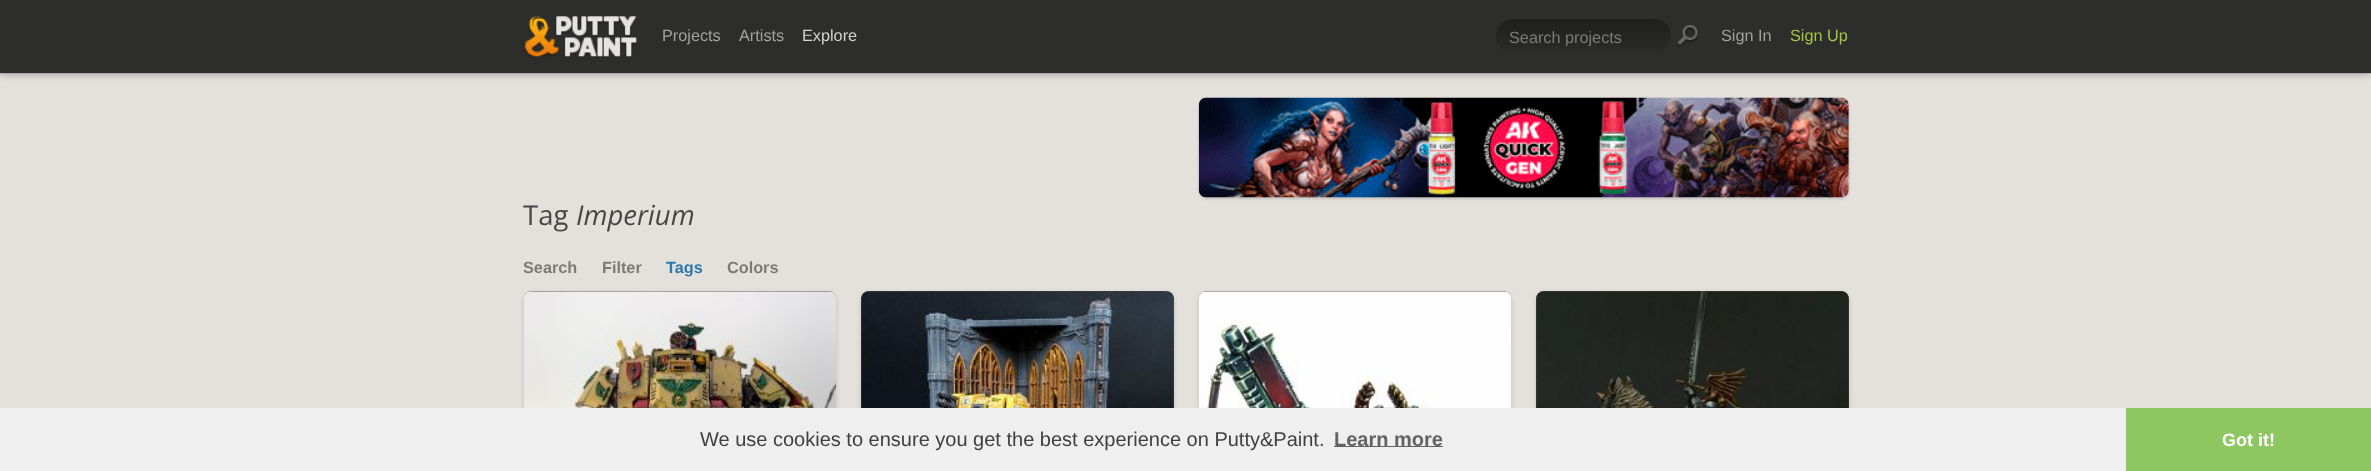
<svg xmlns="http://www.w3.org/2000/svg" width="2371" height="471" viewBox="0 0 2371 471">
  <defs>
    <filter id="blur1" x="-50%" y="-200%" width="200%" height="500%"><feGaussianBlur stdDeviation="0.5"/></filter>
    <filter id="blur2" x="-50%" y="-200%" width="200%" height="500%"><feGaussianBlur stdDeviation="4"/></filter>
    <linearGradient id="g1" gradientUnits="userSpaceOnUse" x1="1584" y1="19" x2="1584" y2="53"><stop offset="0" stop-color="#1e1e1d"/><stop offset="1" stop-color="#2b2b2a"/></linearGradient>
    <clipPath id="clip1"><rect x="1509" y="28" width="150" height="18"/></clipPath>
    <filter id="blur3" x="-50%" y="-200%" width="200%" height="500%"><feGaussianBlur stdDeviation="1.5"/></filter>
    <filter id="blur4" x="-50%" y="-200%" width="200%" height="500%"><feGaussianBlur stdDeviation="2.5"/></filter>
  </defs>
  <rect width="100%" height="100%" fill="#e4e1dd"/>
  <rect x="0" y="1" width="2371" height="73" fill="#000000" fill-opacity="0.1" filter="url(#blur1)"/>
  <rect x="0" y="1" width="2371" height="73" fill="#000000" fill-opacity="0.3" filter="url(#blur2)"/>
  <rect x="0" y="0" width="2371" height="73" fill="#2d2d2c"/>
  <image x="524" y="16" width="113" height="42" href="img1.png"/>
  <text x="662" y="41" font-family="Liberation Sans" font-size="16.25" fill="#a1a19f">Projects</text>
  <text x="739" y="41" font-family="Liberation Sans" font-size="16.25" fill="#a1a19f">Artists</text>
  <text x="802" y="41" font-family="Liberation Sans" font-size="16.25" fill="#d3d3d2">Explore</text>
  <rect x="1496" y="19" width="175" height="34" rx="17" fill="url(#g1)"/>
  <g clip-path="url(#clip1)">
    <text x="1509" y="43" font-family="Liberation Sans" font-size="16.25" fill="#7b7b78">Search projects</text>
  </g>
  <image x="1677" y="25" width="22" height="22" href="img2.png"/>
  <text x="1721" y="41" font-family="Liberation Sans" font-size="16.25" fill="#a1a19f">Sign In</text>
  <text x="1790" y="41" font-family="Liberation Sans" font-size="16.25" fill="#a7c444">Sign Up</text>
  <rect x="1199" y="99" width="650" height="100" rx="8" fill="#000000" fill-opacity="0.15" filter="url(#blur3)"/>
  <image x="1198" y="97" width="651" height="101" href="img3.png"/>
  <text x="523" y="225" font-family="Open Sans" font-size="27.5" fill="#474746">Tag</text>
  <text x="576" y="225" font-family="Open Sans" font-size="27.5" font-style="italic" fill="#474746">Imperium</text>
  <text x="523" y="273" font-family="Liberation Sans" font-size="16.25" font-weight="bold" fill="#7b7b78">Search</text>
  <text x="602" y="273" font-family="Liberation Sans" font-size="16.25" font-weight="bold" fill="#7b7b78">Filter</text>
  <text x="666" y="273" font-family="Liberation Sans" font-size="16.25" font-weight="bold" fill="#2c79ac">Tags</text>
  <text x="727" y="273" font-family="Liberation Sans" font-size="16.25" font-weight="bold" fill="#7b7b78">Colors</text>
  <rect x="524" y="293" width="312" height="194" rx="8" fill="#000000" fill-opacity="0.15" filter="url(#blur4)"/>
  <rect x="524" y="291" width="312" height="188" rx="8" fill="#474746"/>
  <image x="524" y="291" width="313" height="117" href="img4.png"/>
  <rect x="861" y="293" width="313" height="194" rx="8" fill="#000000" fill-opacity="0.15" filter="url(#blur4)"/>
  <rect x="861" y="291" width="313" height="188" rx="8" fill="#474746"/>
  <image x="861" y="291" width="313" height="117" href="img5.png"/>
  <rect x="1199" y="293" width="312" height="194" rx="8" fill="#000000" fill-opacity="0.15" filter="url(#blur4)"/>
  <rect x="1199" y="291" width="312" height="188" rx="8" fill="#474746"/>
  <image x="1199" y="291" width="312" height="117" href="img6.png"/>
  <rect x="1536" y="293" width="313" height="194" rx="8" fill="#000000" fill-opacity="0.15" filter="url(#blur4)"/>
  <rect x="1536" y="291" width="313" height="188" rx="8" fill="#474746"/>
  <image x="1536" y="291" width="313" height="117" href="img7.png"/>
  <rect x="0" y="408" width="2126" height="63" fill="#efefef"/>
  <text x="700" y="446" font-family="Liberation Sans" font-size="20" fill="#404040">We use cookies to ensure you get the best experience on Putty&amp;Paint.</text>
  <rect x="1334" y="446" width="109" height="1" fill="#636363"/>
  <text x="1334" y="446" font-family="Liberation Sans" font-size="20" font-weight="bold" fill="#636363">Learn more</text>
  <rect x="2126" y="408" width="245" height="63" fill="#8ec760"/>
  <text x="2222" y="446" font-family="Liberation Sans" font-size="18" font-weight="bold" fill="#ffffff">Got it!</text>
</svg>
